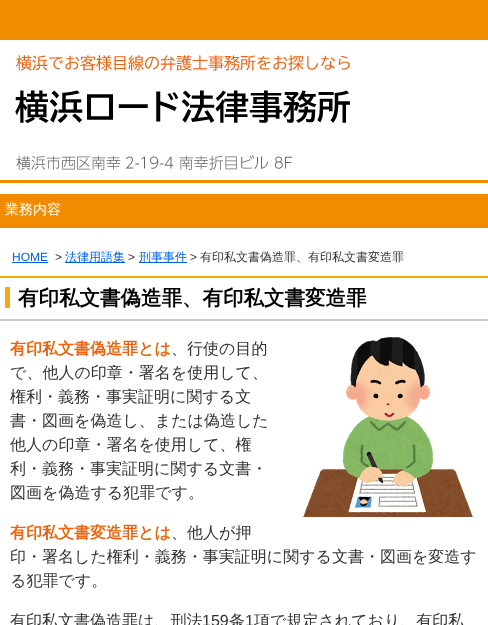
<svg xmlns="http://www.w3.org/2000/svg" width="488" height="625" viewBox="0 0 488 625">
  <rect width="100%" height="100%" fill="#ffffff"/>
  <rect x="0" y="0" width="488" height="40" fill="#f18c00"/>
  <rect x="0" y="180" width="488" height="3" fill="#f18c00"/>
  <image x="15" y="55" width="335" height="115" href="img1.png"/>
  <rect x="0" y="194" width="488" height="34" fill="#f18c00"/>
  <text x="5" y="214" font-family="WenQuanYi Zen Hei" font-size="14" font-weight="500" fill="#ffffff">業務内容</text>
  <text x="12" y="261" font-family="Liberation Sans" font-size="12" fill="#0062e2">HOME</text>
  <rect x="12" y="262" width="36" height="1" fill="#0062e2"/>
  <text x="55" y="261" font-family="Liberation Sans" font-size="12" fill="#333333">&gt;</text>
  <rect x="65" y="262" width="60" height="1" fill="#0062e2"/>
  <text x="65" y="261" font-family="WenQuanYi Zen Hei" font-size="12" font-weight="500" fill="#0062e2">法律用語集</text>
  <text x="128" y="261" font-family="Liberation Sans" font-size="12" fill="#333333">&gt;</text>
  <rect x="139" y="262" width="48" height="1" fill="#0062e2"/>
  <text x="139" y="261" font-family="WenQuanYi Zen Hei" font-size="12" font-weight="500" fill="#0062e2">刑事事件</text>
  <text x="190" y="261" font-family="Liberation Sans" font-size="12" fill="#333333">&gt;</text>
  <text x="200" y="261" font-family="WenQuanYi Zen Hei" font-size="12" font-weight="500" fill="#333333">有印私文書偽造罪、有印私文書変造罪</text>
  <rect x="5" y="287" width="5" height="21" fill="#f7aa10"/>
  <rect x="0" y="276" width="488" height="2" fill="#f7aa10"/>
  <rect x="0" y="319" width="488" height="2" fill="#cccccc"/>
  <text x="18" y="305" font-family="WenQuanYi Zen Hei" font-size="20.5" font-weight="bold" fill="#000000">有印私文書偽造罪、有印私文書変造罪</text>
  <text x="10" y="354" font-family="WenQuanYi Zen Hei" font-size="16" font-weight="bold" fill="#eb630f">有印私文書偽造罪とは</text>
  <text x="171" y="354" font-family="WenQuanYi Zen Hei" font-size="16" font-weight="500" fill="#333333">、行使の目的</text>
  <text x="10" y="378" font-family="WenQuanYi Zen Hei" font-size="16" font-weight="500" fill="#333333">で、他人の印章・署名を使用して、</text>
  <text x="10" y="402" font-family="WenQuanYi Zen Hei" font-size="16" font-weight="500" fill="#333333">権利・義務・事実証明に関する文</text>
  <text x="10" y="426" font-family="WenQuanYi Zen Hei" font-size="16" font-weight="500" fill="#333333">書・図画を偽造し、または偽造した</text>
  <text x="10" y="450" font-family="WenQuanYi Zen Hei" font-size="16" font-weight="500" fill="#333333">他人の印章・署名を使用して、権</text>
  <text x="10" y="474" font-family="WenQuanYi Zen Hei" font-size="16" font-weight="500" fill="#333333">利・義務・事実証明に関する文書・</text>
  <text x="10" y="498" font-family="WenQuanYi Zen Hei" font-size="16" font-weight="500" fill="#333333">図画を偽造する犯罪です。</text>
  <image x="303" y="337" width="170" height="180" href="img2.png"/>
  <text x="10" y="538" font-family="WenQuanYi Zen Hei" font-size="16" font-weight="bold" fill="#eb630f">有印私文書変造罪とは</text>
  <text x="171" y="538" font-family="WenQuanYi Zen Hei" font-size="16" font-weight="500" fill="#333333">、他人が押</text>
  <text x="10" y="562" font-family="WenQuanYi Zen Hei" font-size="16" font-weight="500" fill="#333333">印・署名した権利・義務・事実証明に関する文書・図画を変造す</text>
  <text x="10" y="586" font-family="WenQuanYi Zen Hei" font-size="16" font-weight="500" fill="#333333">る犯罪です。</text>
  <text x="10" y="626" font-family="WenQuanYi Zen Hei" font-size="16" font-weight="500" fill="#333333">有印私文書偽造罪は、刑法</text>
  <text x="202" y="626" font-family="Liberation Sans" font-size="16" fill="#333333">159</text>
  <text x="229" y="626" font-family="WenQuanYi Zen Hei" font-size="16" font-weight="500" fill="#333333">条</text>
  <text x="245" y="626" font-family="Liberation Sans" font-size="16" fill="#333333">1</text>
  <text x="254" y="626" font-family="WenQuanYi Zen Hei" font-size="16" font-weight="500" fill="#333333">項で規定されており、有印私</text>
</svg>
